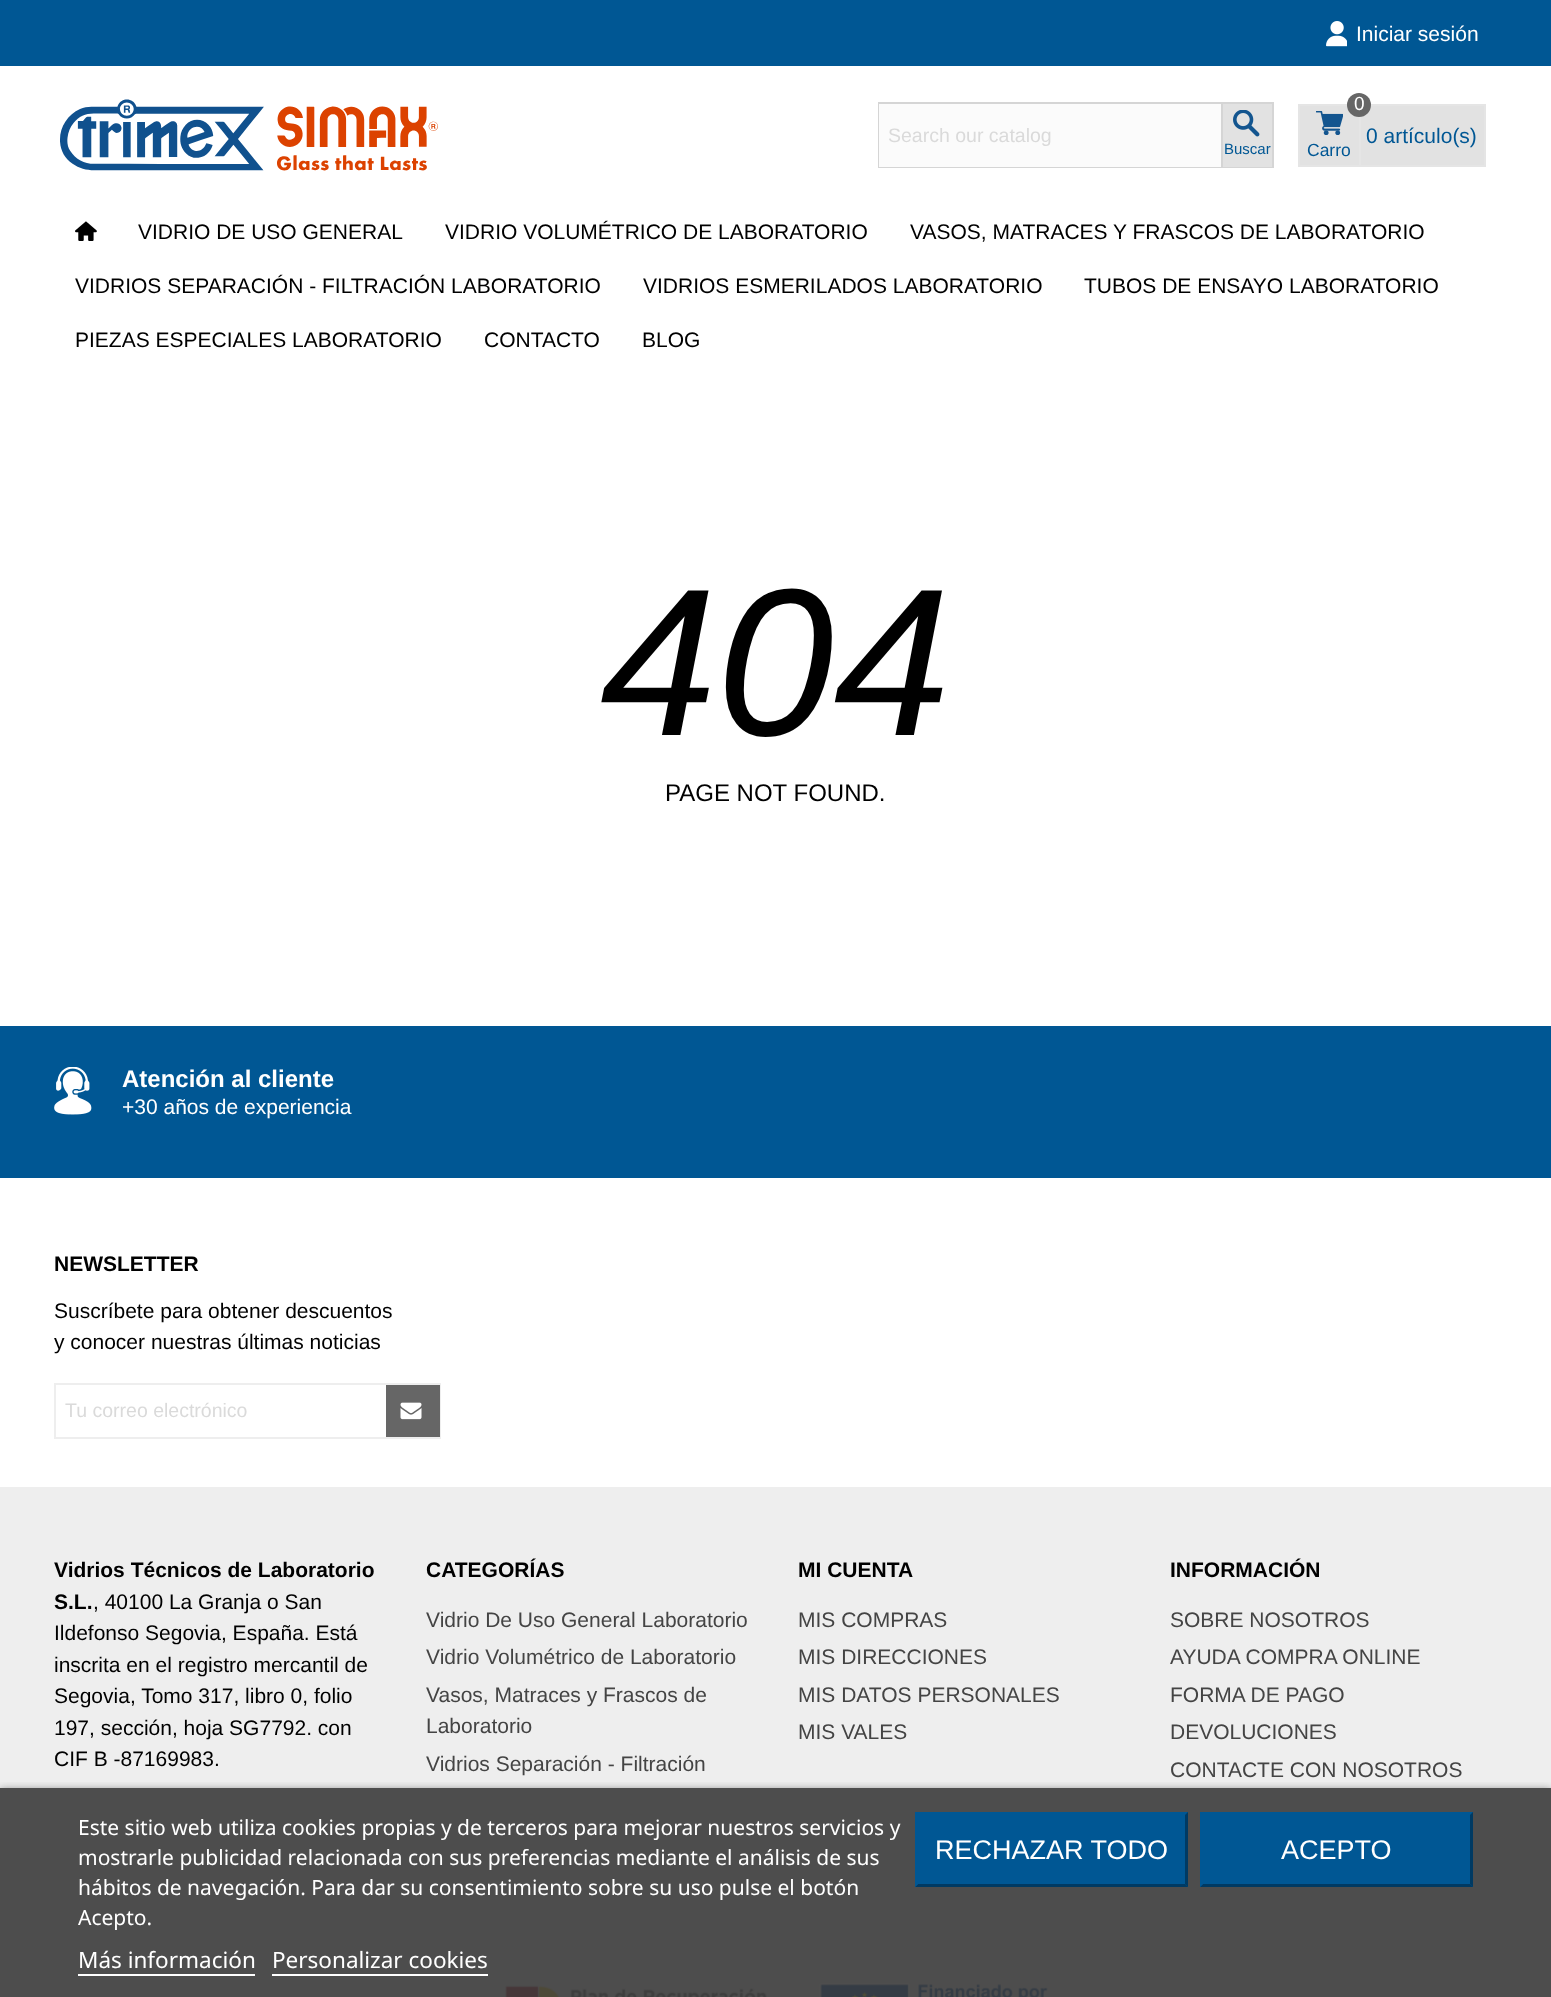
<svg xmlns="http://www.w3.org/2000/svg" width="1551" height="1997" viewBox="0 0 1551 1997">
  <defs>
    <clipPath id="clip1"><rect x="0" y="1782" width="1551" height="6"/></clipPath>
    <filter id="blur1" x="-50%" y="-200%" width="200%" height="500%"><feGaussianBlur stdDeviation="4"/></filter>
  </defs>
  <rect width="100%" height="100%" fill="#ffffff"/>
  <rect x="0" y="0" width="1551" height="66" fill="#005794"/>
  <image x="1326" y="21" width="21" height="26" href="img1.png"/>
  <text x="1356" y="41" font-family="Liberation Sans" font-size="21" fill="#ffffff">Iniciar sesión</text>
  <image x="60" y="99" width="378" height="72" href="img2.png"/>
  <rect x="879" y="103" width="394" height="64" fill="none" stroke="#d5d5d5" stroke-width="2"/>
  <rect x="879" y="104" width="342" height="63" fill="#fbfbfb"/>
  <text x="888" y="142" font-family="Liberation Sans" font-size="19.5" fill="#dadada">Search our catalog</text>
  <rect x="1223" y="104" width="49" height="63" fill="#e2e2e2"/>
  <rect x="1221" y="104" width="2" height="63" fill="#d5d5d5"/>
  <image x="1233" y="110" width="27" height="27" href="img3.png"/>
  <text x="1224" y="154" font-family="Liberation Sans" font-size="15" fill="#005794">Buscar</text>
  <rect x="1299" y="105" width="61" height="61" fill="#e2e2e2" stroke="#e5e5e5" stroke-width="2"/>
  <rect x="1361" y="106" width="123" height="59" fill="#e2e2e2"/>
  <rect x="1370" y="104" width="115" height="2" fill="#e5e5e5"/>
  <circle cx="1359" cy="105" r="12" fill="#666666"/>
  <text x="1354" y="110" font-family="Liberation Sans" font-size="19" fill="#ffffff">0</text>
  <image x="1316" y="111" width="27" height="24" href="img4.png"/>
  <text x="1307" y="156" font-family="Liberation Sans" font-size="17.5" fill="#005794">Carro</text>
  <rect x="1484" y="104" width="2" height="63" fill="#e5e5e5"/>
  <rect x="1379" y="165" width="106" height="2" fill="#e5e5e5"/>
  <rect x="1361" y="165" width="18" height="2" fill="#e5e5e5"/>
  <text x="1366" y="143" font-family="Liberation Sans" font-size="21" fill="#005794">0 artículo(s)</text>
  <image x="75" y="221" width="22" height="20" href="img5.png"/>
  <text x="138" y="239" font-family="Liberation Sans" font-size="21" fill="#000000">VIDRIO DE USO GENERAL</text>
  <text x="445" y="239" font-family="Liberation Sans" font-size="21" fill="#000000">VIDRIO VOLUMÉTRICO DE LABORATORIO</text>
  <text x="910" y="239" font-family="Liberation Sans" font-size="21" fill="#000000">VASOS, MATRACES Y FRASCOS DE LABORATORIO</text>
  <text x="75" y="293" font-family="Liberation Sans" font-size="21" fill="#000000">VIDRIOS SEPARACIÓN - FILTRACIÓN LABORATORIO</text>
  <text x="643" y="293" font-family="Liberation Sans" font-size="21" fill="#000000">VIDRIOS ESMERILADOS LABORATORIO</text>
  <text x="1084" y="293" font-family="Liberation Sans" font-size="21" fill="#000000">TUBOS DE ENSAYO LABORATORIO</text>
  <text x="75" y="347" font-family="Liberation Sans" font-size="21" fill="#000000">PIEZAS ESPECIALES LABORATORIO</text>
  <text x="484" y="347" font-family="Liberation Sans" font-size="21" fill="#000000">CONTACTO</text>
  <text x="642" y="347" font-family="Liberation Sans" font-size="21" fill="#000000">BLOG</text>
  <text x="600" y="735" font-family="Liberation Sans" font-size="210" font-style="italic" fill="#000000">404</text>
  <text x="665" y="801" font-family="Liberation Sans" font-size="24" fill="#000000">PAGE NOT FOUND.</text>
  <rect x="0" y="1026" width="1551" height="152" fill="#005794"/>
  <image x="54" y="1067" width="38" height="48" href="img6.png"/>
  <text x="122" y="1087" font-family="Liberation Sans" font-size="24" font-weight="bold" fill="#ffffff">Atención al cliente</text>
  <text x="122" y="1114" font-family="Liberation Sans" font-size="21" fill="#ffffff">+30 años de experiencia</text>
  <text x="54" y="1271" font-family="Liberation Sans" font-size="21" font-weight="bold" fill="#000000">NEWSLETTER</text>
  <text x="54" y="1318" font-family="Liberation Sans" font-size="21" fill="#000000">Suscríbete para obtener descuentos</text>
  <text x="54" y="1349" font-family="Liberation Sans" font-size="21" fill="#000000">y conocer nuestras últimas noticias</text>
  <rect x="55" y="1384" width="385" height="54" fill="none" stroke="#eeeeee" stroke-width="2"/>
  <text x="65" y="1417" font-family="Liberation Sans" font-size="19.5" fill="#dadada">Tu correo electrónico</text>
  <rect x="386" y="1385" width="54" height="52" fill="#666666"/>
  <image x="400" y="1402" width="22" height="18" href="img7.png"/>
  <rect x="0" y="1487" width="1551" height="510" fill="#eeeeee"/>
  <image x="505" y="1985" width="262" height="12" href="img8.png"/>
  <image x="819" y="1983" width="229" height="14" href="img9.png"/>
  <g clip-path="url(#clip1)">
    <rect x="0" y="1790" width="1551" height="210" fill="#707070" filter="url(#blur1)"/>
  </g>
  <rect x="0" y="1788" width="1551" height="209" fill="#3b3b3b" fill-opacity="0.9"/>
  <text x="78" y="1835" font-family="Noto Sans" font-size="21" fill="#ffffff">Este sitio web utiliza cookies propias y de terceros para mejorar nuestros servicios y</text>
  <text x="78" y="1865" font-family="Noto Sans" font-size="21" fill="#ffffff">mostrarle publicidad relacionada con sus preferencias mediante el análisis de sus</text>
  <text x="78" y="1895" font-family="Noto Sans" font-size="21" fill="#ffffff">hábitos de navegación. Para dar su consentimiento sobre su uso pulse el botón</text>
  <text x="78" y="1925" font-family="Noto Sans" font-size="21" fill="#ffffff">Acepto.</text>
  <text x="78" y="1968" font-family="Noto Sans" font-size="22.5" fill="#ffffff">Más información</text>
  <rect x="78" y="1974" width="177" height="2" fill="#ffffff"/>
  <text x="272" y="1968" font-family="Noto Sans" font-size="22.5" fill="#ffffff">Personalizar cookies</text>
  <rect x="272" y="1974" width="216" height="2" fill="#ffffff"/>
  <rect x="915" y="1812" width="273" height="75" fill="#005794"/>
  <path d="M1188 1812V1887L1185 1884V1815Z" fill="#003a63"/>
  <path d="M1188 1887H915L918 1884H1185Z" fill="#003a63"/>
  <path d="M915 1887V1812L918 1815V1884Z" fill="#005794"/>
  <text x="935" y="1859" font-family="Liberation Sans" font-size="27" fill="#ffffff">RECHAZAR TODO</text>
  <rect x="1200" y="1812" width="273" height="75" fill="#005794"/>
  <path d="M1473 1812V1887L1470 1884V1815Z" fill="#003a63"/>
  <path d="M1473 1887H1200L1203 1884H1470Z" fill="#003a63"/>
  <path d="M1200 1887V1812L1203 1815V1884Z" fill="#005794"/>
  <text x="1281" y="1859" font-family="Liberation Sans" font-size="27" fill="#ffffff">ACEPTO</text>
  <text x="54" y="1577" font-family="Liberation Sans" font-size="21" font-weight="bold" fill="#000000">Vidrios Técnicos de Laboratorio</text>
  <text x="54" y="1609" font-family="Liberation Sans" font-size="21" font-weight="bold" fill="#000000">S.L.</text>
  <text x="93" y="1609" font-family="Liberation Sans" font-size="21" fill="#000000">, 40100 La Granja o San</text>
  <text x="54" y="1640" font-family="Liberation Sans" font-size="21" fill="#000000">Ildefonso Segovia, España. Está</text>
  <text x="54" y="1672" font-family="Liberation Sans" font-size="21" fill="#000000">inscrita en el registro mercantil de</text>
  <text x="54" y="1703" font-family="Liberation Sans" font-size="21" fill="#000000">Segovia, Tomo 317, libro 0, folio</text>
  <text x="54" y="1735" font-family="Liberation Sans" font-size="21" fill="#000000">197, sección, hoja SG7792. con</text>
  <text x="54" y="1766" font-family="Liberation Sans" font-size="21" fill="#000000">CIF B -87169983.</text>
  <text x="426" y="1577" font-family="Liberation Sans" font-size="21" font-weight="bold" fill="#000000">CATEGORÍAS</text>
  <text x="426" y="1627" font-family="Liberation Sans" font-size="21" fill="#444444">Vidrio De Uso General Laboratorio</text>
  <text x="426" y="1664" font-family="Liberation Sans" font-size="21" fill="#444444">Vidrio Volumétrico de Laboratorio</text>
  <text x="426" y="1702" font-family="Liberation Sans" font-size="21" fill="#444444">Vasos, Matraces y Frascos de</text>
  <text x="426" y="1733" font-family="Liberation Sans" font-size="21" fill="#444444">Laboratorio</text>
  <text x="426" y="1771" font-family="Liberation Sans" font-size="21" fill="#444444">Vidrios Separación - Filtración</text>
  <text x="798" y="1577" font-family="Liberation Sans" font-size="21" font-weight="bold" fill="#000000">MI CUENTA</text>
  <text x="798" y="1627" font-family="Liberation Sans" font-size="21" fill="#444444">MIS COMPRAS</text>
  <text x="798" y="1664" font-family="Liberation Sans" font-size="21" fill="#444444">MIS DIRECCIONES</text>
  <text x="798" y="1702" font-family="Liberation Sans" font-size="21" fill="#444444">MIS DATOS PERSONALES</text>
  <text x="798" y="1739" font-family="Liberation Sans" font-size="21" fill="#444444">MIS VALES</text>
  <text x="1170" y="1577" font-family="Liberation Sans" font-size="21" font-weight="bold" fill="#000000">INFORMACIÓN</text>
  <text x="1170" y="1627" font-family="Liberation Sans" font-size="21" fill="#444444">SOBRE NOSOTROS</text>
  <text x="1170" y="1664" font-family="Liberation Sans" font-size="21" fill="#444444">AYUDA COMPRA ONLINE</text>
  <text x="1170" y="1702" font-family="Liberation Sans" font-size="21" fill="#444444">FORMA DE PAGO</text>
  <text x="1170" y="1739" font-family="Liberation Sans" font-size="21" fill="#444444">DEVOLUCIONES</text>
  <text x="1170" y="1777" font-family="Liberation Sans" font-size="21" fill="#444444">CONTACTE CON NOSOTROS</text>
</svg>
